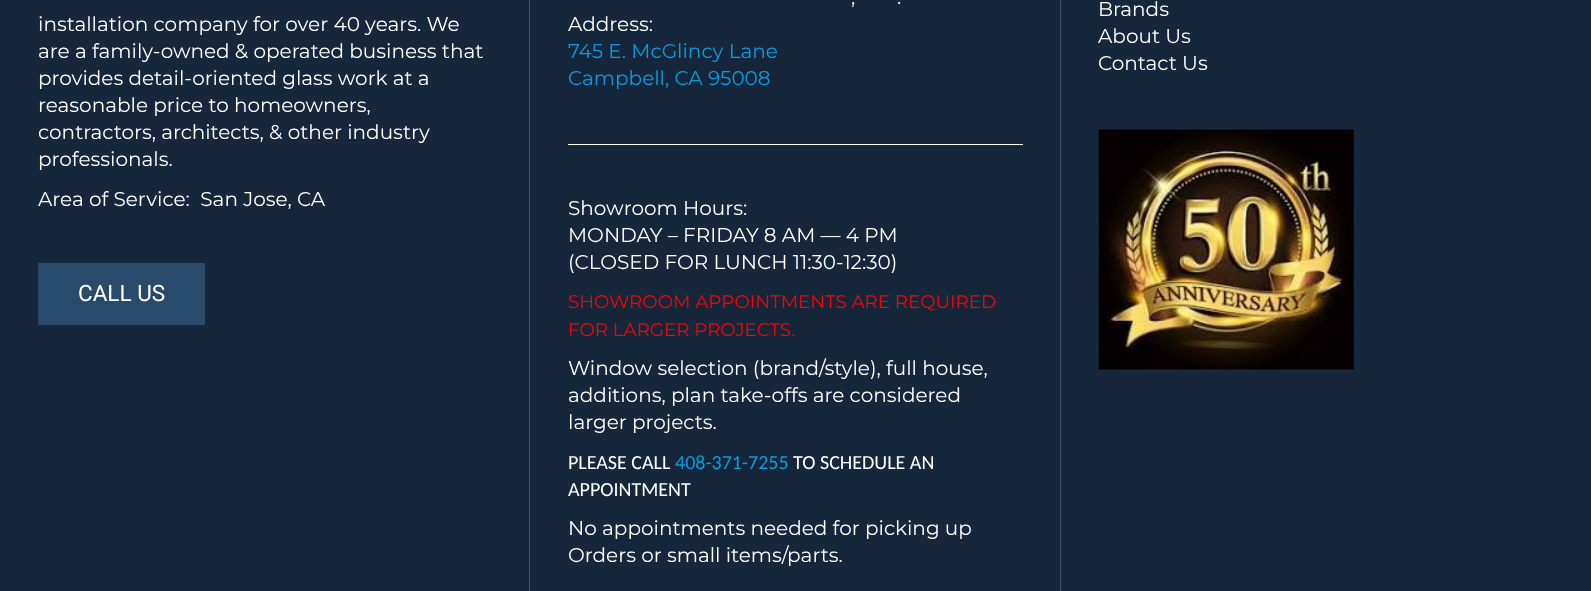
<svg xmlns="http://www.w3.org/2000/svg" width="1591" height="591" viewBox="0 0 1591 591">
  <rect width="100%" height="100%" fill="#16273b"/>
  <rect x="529" y="0" width="1" height="591" fill="#455262"/>
  <text x="38" y="31" font-family="Montserrat" font-size="20" fill="#ffffff">installation company for over 40 years. We</text>
  <text x="38" y="58" font-family="Montserrat" font-size="20" fill="#ffffff">are a family-owned &amp; operated business that</text>
  <text x="38" y="85" font-family="Montserrat" font-size="20" fill="#ffffff">provides detail-oriented glass work at a</text>
  <text x="38" y="112" font-family="Montserrat" font-size="20" fill="#ffffff">reasonable price to homeowners,</text>
  <text x="38" y="139" font-family="Montserrat" font-size="20" fill="#ffffff">contractors, architects, &amp; other industry</text>
  <text x="38" y="166" font-family="Montserrat" font-size="20" fill="#ffffff">professionals.</text>
  <text x="38" y="206" font-family="Montserrat" font-size="20" fill="#ffffff" xml:space="preserve">Area of Service:  San Jose, CA</text>
  <rect x="38" y="263" width="167" height="62" fill="#294b6b"/>
  <text x="78" y="301" font-family="Roboto" font-size="22.5" fill="#ffffff">CALL US</text>
  <rect x="1060" y="0" width="1" height="591" fill="#455262"/>
  <text x="851" y="4" font-family="Montserrat" font-size="20" fill="#ffffff">,</text>
  <text x="897" y="4" font-family="Montserrat" font-size="20" fill="#ffffff">.</text>
  <text x="568" y="31" font-family="Montserrat" font-size="20" fill="#ffffff">Address:</text>
  <text x="568" y="58" font-family="Montserrat" font-size="20" fill="#0f9add">745 E. McGlincy Lane</text>
  <text x="568" y="85" font-family="Montserrat" font-size="20" fill="#0f9add">Campbell, CA 95008</text>
  <rect x="568" y="144" width="455" height="1" fill="#ffffff"/>
  <text x="568" y="215" font-family="Montserrat" font-size="20" fill="#ffffff">Showroom Hours:</text>
  <text x="568" y="242" font-family="Montserrat" font-size="20" fill="#ffffff">MONDAY – FRIDAY 8 AM — 4 PM</text>
  <text x="568" y="269" font-family="Montserrat" font-size="20" fill="#ffffff">(CLOSED FOR LUNCH 11:30-12:30)</text>
  <text x="568" y="308" font-family="Montserrat" font-size="18.3" fill="#ff0000">SHOWROOM APPOINTMENTS ARE REQUIRED</text>
  <text x="568" y="336" font-family="Montserrat" font-size="18.3" fill="#ff0000">FOR LARGER PROJECTS.</text>
  <text x="568" y="375" font-family="Montserrat" font-size="20" fill="#ffffff">Window selection (brand/style), full house,</text>
  <text x="568" y="402" font-family="Montserrat" font-size="20" fill="#ffffff">additions, plan take-offs are considered</text>
  <text x="568" y="429" font-family="Montserrat" font-size="20" fill="#ffffff">larger projects.</text>
  <text x="568" y="469" font-family="Carlito" font-size="20" fill="#ffffff">PLEASE CALL</text>
  <text x="675" y="469" font-family="Carlito" font-size="20" fill="#0f9add">408-371-7255</text>
  <text x="793" y="469" font-family="Carlito" font-size="20" fill="#ffffff">TO SCHEDULE AN</text>
  <text x="568" y="496" font-family="Carlito" font-size="20" fill="#ffffff">APPOINTMENT</text>
  <text x="568" y="535" font-family="Montserrat" font-size="20" fill="#ffffff">No appointments needed for picking up</text>
  <text x="568" y="562" font-family="Montserrat" font-size="20" fill="#ffffff">Orders or small items/parts.</text>
  <text x="1098" y="16" font-family="Montserrat" font-size="20" fill="#ffffff">Brands</text>
  <text x="1098" y="43" font-family="Montserrat" font-size="20" fill="#ffffff">About Us</text>
  <text x="1098" y="70" font-family="Montserrat" font-size="20" fill="#ffffff">Contact Us</text>
  <image x="1098" y="129" width="256" height="241" href="img1.png"/>
</svg>
